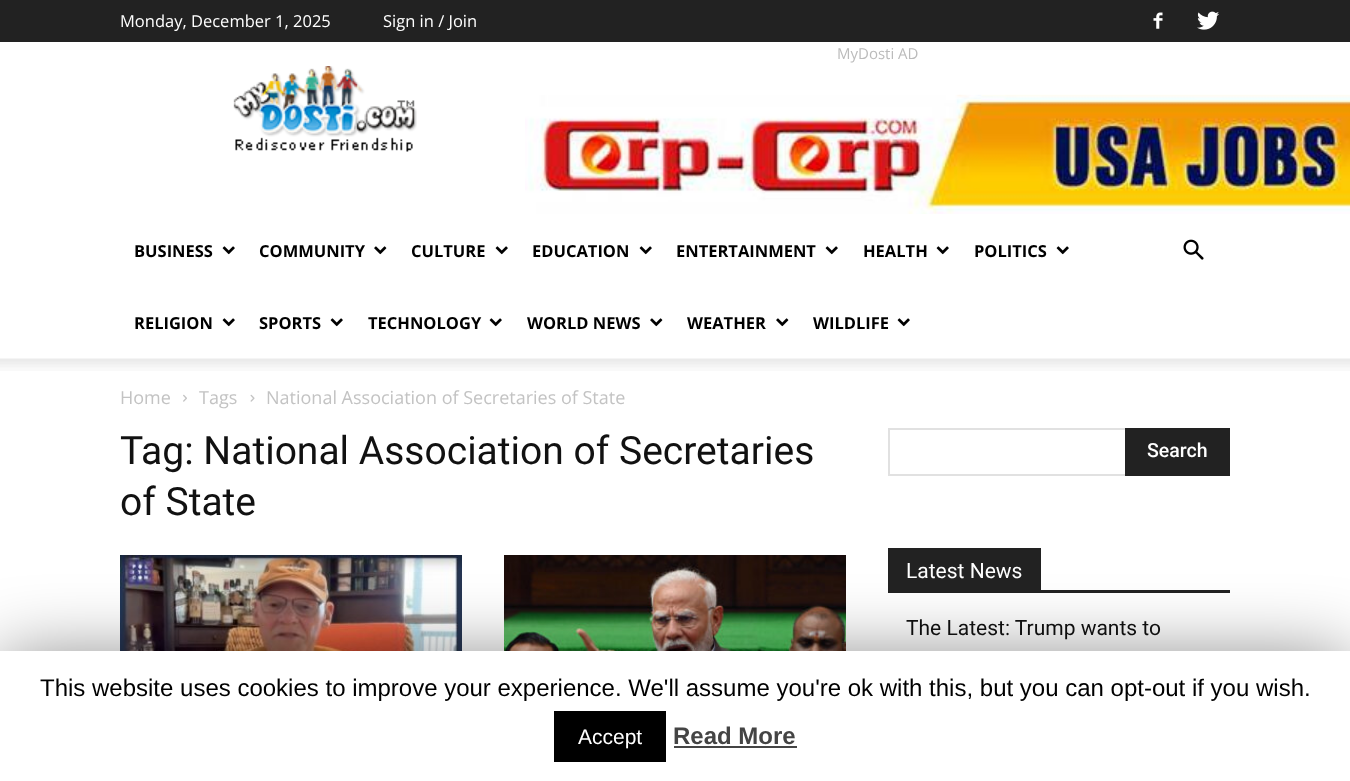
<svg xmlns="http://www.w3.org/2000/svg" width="1350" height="781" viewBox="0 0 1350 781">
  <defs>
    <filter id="blur1" x="-50%" y="-200%" width="200%" height="500%"><feGaussianBlur stdDeviation="37.5"/></filter>
  </defs>
  <rect width="100%" height="100%" fill="#ffffff"/>
  <rect x="0" y="0" width="1350" height="42" fill="#222222"/>
  <text x="120" y="27" font-family="Open Sans" font-size="16.5" fill="#ffffff">Monday, December 1, 2025</text>
  <text x="383" y="27" font-family="Open Sans" font-size="16.5" fill="#ffffff">Sign in / Join</text>
  <image x="1153" y="12" width="10" height="17" href="img1.png"/>
  <image x="1197" y="11" width="22" height="19" href="img2.png"/>
  <text x="837" y="59" font-family="Open Sans" font-size="15" fill="#bbbbbb">MyDosti AD</text>
  <image x="525" y="94" width="825" height="120" href="img3.png"/>
  <image x="233" y="66" width="184" height="86" href="img4.png"/>
  <text x="134" y="257" font-family="Open Sans" font-size="16.5" font-weight="bold" fill="#000000">BUSINESS</text>
  <image x="222" y="246" width="13" height="9" href="img5.png"/>
  <text x="259" y="257" font-family="Open Sans" font-size="16.5" font-weight="bold" fill="#000000">COMMUNITY</text>
  <image x="374" y="246" width="13" height="9" href="img6.png"/>
  <text x="411" y="257" font-family="Open Sans" font-size="16.5" font-weight="bold" fill="#000000">CULTURE</text>
  <image x="495" y="246" width="13" height="9" href="img5.png"/>
  <text x="532" y="257" font-family="Open Sans" font-size="16.5" font-weight="bold" fill="#000000">EDUCATION</text>
  <image x="639" y="246" width="13" height="9" href="img5.png"/>
  <text x="676" y="257" font-family="Open Sans" font-size="16.5" font-weight="bold" fill="#000000">ENTERTAINMENT</text>
  <image x="825" y="246" width="13" height="9" href="img5.png"/>
  <text x="863" y="257" font-family="Open Sans" font-size="16.5" font-weight="bold" fill="#000000">HEALTH</text>
  <image x="936" y="246" width="13" height="9" href="img5.png"/>
  <text x="974" y="257" font-family="Open Sans" font-size="16.5" font-weight="bold" fill="#000000">POLITICS</text>
  <image x="1056" y="246" width="13" height="9" href="img5.png"/>
  <text x="134" y="329" font-family="Open Sans" font-size="16.5" font-weight="bold" fill="#000000">RELIGION</text>
  <image x="222" y="318" width="13" height="9" href="img5.png"/>
  <text x="259" y="329" font-family="Open Sans" font-size="16.5" font-weight="bold" fill="#000000">SPORTS</text>
  <image x="330" y="318" width="13" height="9" href="img5.png"/>
  <text x="368" y="329" font-family="Open Sans" font-size="16.5" font-weight="bold" fill="#000000">TECHNOLOGY</text>
  <image x="489" y="318" width="13" height="9" href="img5.png"/>
  <text x="527" y="329" font-family="Open Sans" font-size="16.5" font-weight="bold" fill="#000000">WORLD NEWS</text>
  <image x="650" y="318" width="13" height="9" href="img6.png"/>
  <text x="687" y="329" font-family="Open Sans" font-size="16.5" font-weight="bold" fill="#000000">WEATHER</text>
  <image x="776" y="318" width="13" height="9" href="img6.png"/>
  <text x="813" y="329" font-family="Open Sans" font-size="16.5" font-weight="bold" fill="#000000">WILDLIFE</text>
  <image x="897" y="318" width="13" height="9" href="img5.png"/>
  <image x="1183" y="239" width="21" height="21" href="img7.png"/>
  <image x="0" y="358" width="1350" height="13" href="img8.png"/>
  <text x="120" y="404" font-family="Open Sans" font-size="18" fill="#c3c3c3">Home</text>
  <image x="183" y="394" width="4" height="8" href="img9.png"/>
  <text x="199" y="404" font-family="Open Sans" font-size="18" fill="#c3c3c3">Tags</text>
  <image x="250" y="394" width="5" height="8" href="img10.png"/>
  <text x="266" y="404" font-family="Open Sans" font-size="18" fill="#c3c3c3">National Association of Secretaries of State</text>
  <text x="120" y="464" font-family="Roboto" font-size="39" fill="#111111">Tag: National Association of Secretaries</text>
  <text x="120" y="515" font-family="Roboto" font-size="39" fill="#111111">of State</text>
  <image x="120" y="555" width="342" height="96" href="img11.png"/>
  <image x="504" y="555" width="342" height="96" href="img12.png"/>
  <rect x="888" y="428" width="237" height="2" fill="#e1e1e1"/>
  <rect x="888" y="474" width="237" height="2" fill="#e1e1e1"/>
  <rect x="888" y="428" width="2" height="48" fill="#e1e1e1"/>
  <rect x="1125" y="428" width="105" height="48" fill="#222222"/>
  <text x="1147" y="457" font-family="Roboto" font-size="19.5" font-weight="500" fill="#ffffff">Search</text>
  <rect x="888" y="590" width="342" height="3" fill="#222222"/>
  <rect x="888" y="548" width="153" height="42" fill="#222222"/>
  <text x="906" y="578" font-family="Roboto" font-size="21" fill="#ffffff">Latest News</text>
  <text x="906" y="635" font-family="Roboto" font-size="21" fill="#111111">The Latest: Trump wants to</text>
  <rect x="0" y="659" width="1350" height="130" fill="#000000" fill-opacity="0.5" filter="url(#blur1)"/>
  <rect x="0" y="651" width="1350" height="130" fill="#ffffff"/>
  <text x="40" y="696" font-family="Liberation Sans" font-size="24" fill="#000000">This website uses cookies to improve your experience. We'll assume you're ok with this, but you can opt-out if you wish.</text>
  <rect x="554" y="711" width="112" height="51" fill="#000000"/>
  <text x="578" y="744" font-family="Liberation Sans" font-size="21" fill="#ffffff">Accept</text>
  <text x="673" y="744" font-family="Liberation Sans" font-size="24" font-weight="bold" fill="#444444">Read More</text>
  <rect x="674" y="746" width="123" height="2" fill="#444444"/>
</svg>
